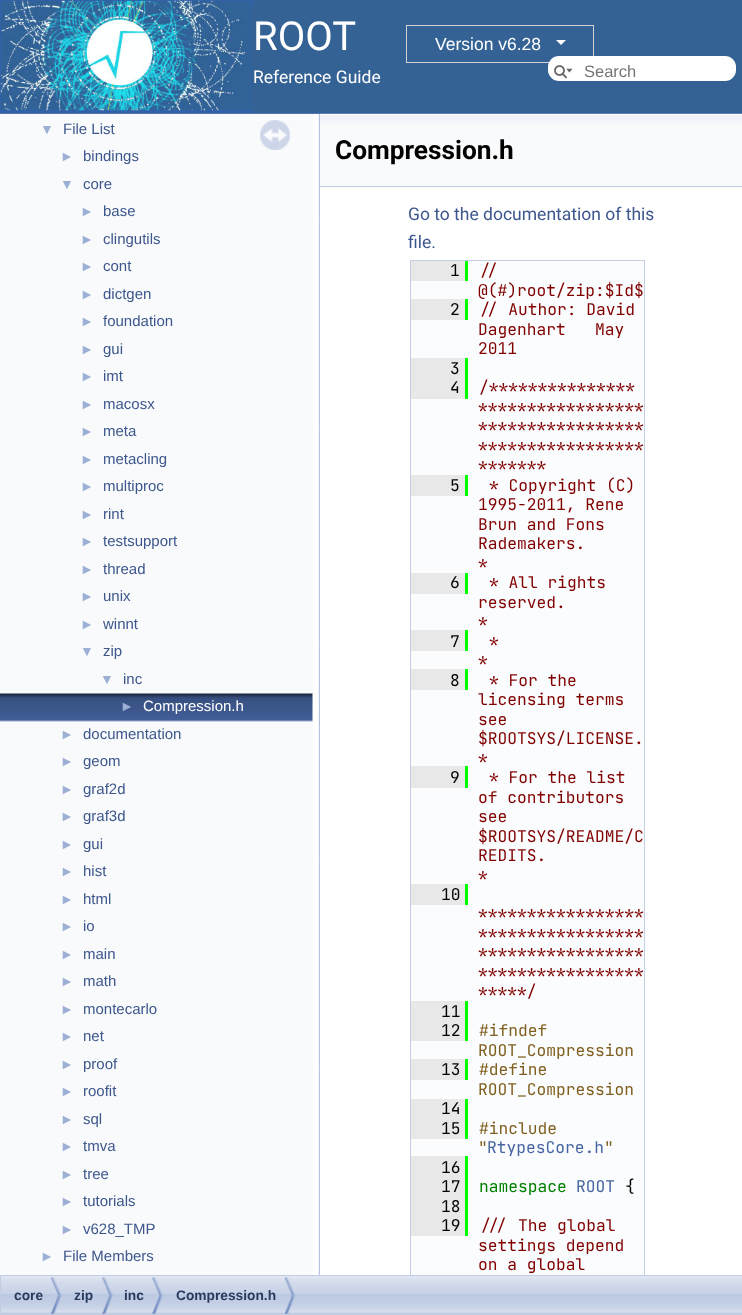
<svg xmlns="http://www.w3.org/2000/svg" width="742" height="1315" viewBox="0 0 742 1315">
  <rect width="100%" height="100%" fill="#ffffff"/>
  <rect x="0" y="113" width="742" height="1" fill="#5373b4"/>
  <rect x="0" y="0" width="742" height="113" fill="#346295"/>
  <image x="0" y="0" width="254" height="113" href="img1.png"/>
  <text x="253" y="50" font-family="Roboto" font-size="40" fill="#ffffff">ROOT</text>
  <rect x="406.5" y="25.5" width="187" height="37" fill="none" stroke="#d3d3d3"/>
  <text x="435" y="50" font-family="Liberation Sans" font-size="17.5" fill="#ffffff">Version v6.28</text>
  <path d="M556 40H566L561 45Z" fill="#ffffff"/>
  <text x="253" y="83" font-family="Roboto" font-size="17.5" fill="#ffffff">Reference Guide</text>
  <rect x="548" y="56" width="188" height="25" rx="11" fill="#ffffff"/>
  <image x="554" y="65" width="19" height="14" href="img2.png"/>
  <text x="584" y="77" font-family="Liberation Sans" font-size="16.5" fill="#757575">Search</text>
  <rect x="0" y="114" width="313" height="1161" fill="#f9fafc"/>
  <text x="40" y="134" font-family="Liberation Sans" font-size="14" fill="#9cafd4">▼</text>
  <text x="63" y="134" font-family="Liberation Sans" font-size="15" fill="#3d578c">File List</text>
  <text x="60" y="161" font-family="Liberation Sans" font-size="14" fill="#9cafd4">►</text>
  <text x="83" y="161" font-family="Liberation Sans" font-size="15" fill="#3d578c">bindings</text>
  <text x="60" y="189" font-family="Liberation Sans" font-size="14" fill="#9cafd4">▼</text>
  <text x="83" y="189" font-family="Liberation Sans" font-size="15" fill="#3d578c">core</text>
  <text x="80" y="216" font-family="Liberation Sans" font-size="14" fill="#9cafd4">►</text>
  <text x="103" y="216" font-family="Liberation Sans" font-size="15" fill="#3d578c">base</text>
  <text x="80" y="244" font-family="Liberation Sans" font-size="14" fill="#9cafd4">►</text>
  <text x="103" y="244" font-family="Liberation Sans" font-size="15" fill="#3d578c">clingutils</text>
  <text x="80" y="271" font-family="Liberation Sans" font-size="14" fill="#9cafd4">►</text>
  <text x="103" y="271" font-family="Liberation Sans" font-size="15" fill="#3d578c">cont</text>
  <text x="80" y="299" font-family="Liberation Sans" font-size="14" fill="#9cafd4">►</text>
  <text x="103" y="299" font-family="Liberation Sans" font-size="15" fill="#3d578c">dictgen</text>
  <text x="80" y="326" font-family="Liberation Sans" font-size="14" fill="#9cafd4">►</text>
  <text x="103" y="326" font-family="Liberation Sans" font-size="15" fill="#3d578c">foundation</text>
  <text x="80" y="354" font-family="Liberation Sans" font-size="14" fill="#9cafd4">►</text>
  <text x="103" y="354" font-family="Liberation Sans" font-size="15" fill="#3d578c">gui</text>
  <text x="80" y="381" font-family="Liberation Sans" font-size="14" fill="#9cafd4">►</text>
  <text x="103" y="381" font-family="Liberation Sans" font-size="15" fill="#3d578c">imt</text>
  <text x="80" y="409" font-family="Liberation Sans" font-size="14" fill="#9cafd4">►</text>
  <text x="103" y="409" font-family="Liberation Sans" font-size="15" fill="#3d578c">macosx</text>
  <text x="80" y="436" font-family="Liberation Sans" font-size="14" fill="#9cafd4">►</text>
  <text x="103" y="436" font-family="Liberation Sans" font-size="15" fill="#3d578c">meta</text>
  <text x="80" y="464" font-family="Liberation Sans" font-size="14" fill="#9cafd4">►</text>
  <text x="103" y="464" font-family="Liberation Sans" font-size="15" fill="#3d578c">metacling</text>
  <text x="80" y="491" font-family="Liberation Sans" font-size="14" fill="#9cafd4">►</text>
  <text x="103" y="491" font-family="Liberation Sans" font-size="15" fill="#3d578c">multiproc</text>
  <text x="80" y="519" font-family="Liberation Sans" font-size="14" fill="#9cafd4">►</text>
  <text x="103" y="519" font-family="Liberation Sans" font-size="15" fill="#3d578c">rint</text>
  <text x="80" y="546" font-family="Liberation Sans" font-size="14" fill="#9cafd4">►</text>
  <text x="103" y="546" font-family="Liberation Sans" font-size="15" fill="#3d578c">testsupport</text>
  <text x="80" y="574" font-family="Liberation Sans" font-size="14" fill="#9cafd4">►</text>
  <text x="103" y="574" font-family="Liberation Sans" font-size="15" fill="#3d578c">thread</text>
  <text x="80" y="601" font-family="Liberation Sans" font-size="14" fill="#9cafd4">►</text>
  <text x="103" y="601" font-family="Liberation Sans" font-size="15" fill="#3d578c">unix</text>
  <text x="80" y="629" font-family="Liberation Sans" font-size="14" fill="#9cafd4">►</text>
  <text x="103" y="629" font-family="Liberation Sans" font-size="15" fill="#3d578c">winnt</text>
  <text x="80" y="656" font-family="Liberation Sans" font-size="14" fill="#9cafd4">▼</text>
  <text x="103" y="656" font-family="Liberation Sans" font-size="15" fill="#3d578c">zip</text>
  <text x="100" y="684" font-family="Liberation Sans" font-size="14" fill="#9cafd4">▼</text>
  <text x="123" y="684" font-family="Liberation Sans" font-size="15" fill="#3d578c">inc</text>
  <image x="0" y="693" width="313" height="29" href="img3.png"/>
  <text x="120" y="711" font-family="Liberation Sans" font-size="14" fill="#9cafd4">►</text>
  <text x="143" y="711" font-family="Liberation Sans" font-size="15" fill="#ffffff">Compression.h</text>
  <text x="60" y="739" font-family="Liberation Sans" font-size="14" fill="#9cafd4">►</text>
  <text x="83" y="739" font-family="Liberation Sans" font-size="15" fill="#3d578c">documentation</text>
  <text x="60" y="766" font-family="Liberation Sans" font-size="14" fill="#9cafd4">►</text>
  <text x="83" y="766" font-family="Liberation Sans" font-size="15" fill="#3d578c">geom</text>
  <text x="60" y="794" font-family="Liberation Sans" font-size="14" fill="#9cafd4">►</text>
  <text x="83" y="794" font-family="Liberation Sans" font-size="15" fill="#3d578c">graf2d</text>
  <text x="60" y="821" font-family="Liberation Sans" font-size="14" fill="#9cafd4">►</text>
  <text x="83" y="821" font-family="Liberation Sans" font-size="15" fill="#3d578c">graf3d</text>
  <text x="60" y="849" font-family="Liberation Sans" font-size="14" fill="#9cafd4">►</text>
  <text x="83" y="849" font-family="Liberation Sans" font-size="15" fill="#3d578c">gui</text>
  <text x="60" y="876" font-family="Liberation Sans" font-size="14" fill="#9cafd4">►</text>
  <text x="83" y="876" font-family="Liberation Sans" font-size="15" fill="#3d578c">hist</text>
  <text x="60" y="904" font-family="Liberation Sans" font-size="14" fill="#9cafd4">►</text>
  <text x="83" y="904" font-family="Liberation Sans" font-size="15" fill="#3d578c">html</text>
  <text x="60" y="931" font-family="Liberation Sans" font-size="14" fill="#9cafd4">►</text>
  <text x="83" y="931" font-family="Liberation Sans" font-size="15" fill="#3d578c">io</text>
  <text x="60" y="959" font-family="Liberation Sans" font-size="14" fill="#9cafd4">►</text>
  <text x="83" y="959" font-family="Liberation Sans" font-size="15" fill="#3d578c">main</text>
  <text x="60" y="986" font-family="Liberation Sans" font-size="14" fill="#9cafd4">►</text>
  <text x="83" y="986" font-family="Liberation Sans" font-size="15" fill="#3d578c">math</text>
  <text x="60" y="1014" font-family="Liberation Sans" font-size="14" fill="#9cafd4">►</text>
  <text x="83" y="1014" font-family="Liberation Sans" font-size="15" fill="#3d578c">montecarlo</text>
  <text x="60" y="1041" font-family="Liberation Sans" font-size="14" fill="#9cafd4">►</text>
  <text x="83" y="1041" font-family="Liberation Sans" font-size="15" fill="#3d578c">net</text>
  <text x="60" y="1069" font-family="Liberation Sans" font-size="14" fill="#9cafd4">►</text>
  <text x="83" y="1069" font-family="Liberation Sans" font-size="15" fill="#3d578c">proof</text>
  <text x="60" y="1096" font-family="Liberation Sans" font-size="14" fill="#9cafd4">►</text>
  <text x="83" y="1096" font-family="Liberation Sans" font-size="15" fill="#3d578c">roofit</text>
  <text x="60" y="1124" font-family="Liberation Sans" font-size="14" fill="#9cafd4">►</text>
  <text x="83" y="1124" font-family="Liberation Sans" font-size="15" fill="#3d578c">sql</text>
  <text x="60" y="1151" font-family="Liberation Sans" font-size="14" fill="#9cafd4">►</text>
  <text x="83" y="1151" font-family="Liberation Sans" font-size="15" fill="#3d578c">tmva</text>
  <text x="60" y="1179" font-family="Liberation Sans" font-size="14" fill="#9cafd4">►</text>
  <text x="83" y="1179" font-family="Liberation Sans" font-size="15" fill="#3d578c">tree</text>
  <text x="60" y="1206" font-family="Liberation Sans" font-size="14" fill="#9cafd4">►</text>
  <text x="83" y="1206" font-family="Liberation Sans" font-size="15" fill="#3d578c">tutorials</text>
  <text x="60" y="1234" font-family="Liberation Sans" font-size="14" fill="#9cafd4">►</text>
  <text x="83" y="1234" font-family="Liberation Sans" font-size="15" fill="#3d578c">v628_TMP</text>
  <text x="40" y="1261" font-family="Liberation Sans" font-size="14" fill="#9cafd4">►</text>
  <text x="63" y="1261" font-family="Liberation Sans" font-size="15" fill="#3d578c">File Members</text>
  <image x="260" y="120" width="30" height="30" href="img4.png"/>
  <image x="318" y="113" width="2" height="1162" href="img5.png"/>
  <rect x="320" y="124" width="422" height="64" fill="#f9fafc"/>
  <image x="320" y="113" width="422" height="11" href="img6.png"/>
  <rect x="320" y="186" width="422" height="1" fill="#c4cfe5"/>
  <text x="335" y="159" font-family="Roboto" font-size="26.25" font-weight="bold" fill="#000000">Compression.h</text>
  <text x="408" y="220" font-family="Roboto" font-size="17.5" fill="#3d578c">Go to the documentation of this</text>
  <text x="408" y="248" font-family="Roboto" font-size="17.5" fill="#3d578c">file.</text>
  <rect x="411" y="261" width="233" height="1014" fill="#fbfcfd"/>
  <rect x="410.5" y="260.5" width="234" height="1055" fill="none" stroke="#c4cfe5"/>
  <rect x="411" y="261" width="54" height="20" fill="#e8e8e8"/>
  <text x="450" y="276" font-family="JetBrains Mono" font-size="16.25" fill="#000000">1</text>
  <rect x="465" y="261" width="3" height="20" fill="#00ff00"/>
  <text x="479" y="276" font-family="JetBrains Mono" font-size="16.25" fill="#800000">//</text>
  <text x="478" y="296" font-family="JetBrains Mono" font-size="16.25" fill="#800000">@(#)root/zip:$Id$</text>
  <rect x="411" y="299" width="54" height="21" fill="#e8e8e8"/>
  <text x="450" y="315" font-family="JetBrains Mono" font-size="16.25" fill="#000000">2</text>
  <rect x="465" y="299" width="3" height="21" fill="#00ff00"/>
  <text x="479" y="315" font-family="JetBrains Mono" font-size="16.25" fill="#800000">// Author: David</text>
  <text x="478" y="335" font-family="JetBrains Mono" font-size="16.25" fill="#800000" xml:space="preserve">Dagenhart   May</text>
  <text x="478" y="354" font-family="JetBrains Mono" font-size="16.25" fill="#800000">2011</text>
  <rect x="411" y="358" width="54" height="41" fill="#e8e8e8"/>
  <text x="450" y="374" font-family="JetBrains Mono" font-size="16.25" fill="#000000">3</text>
  <rect x="465" y="358" width="3" height="41" fill="#00ff00"/>
  <text x="450" y="393" font-family="JetBrains Mono" font-size="16.25" fill="#000000">4</text>
  <text x="479" y="393" font-family="JetBrains Mono" font-size="16.25" fill="#800000">/***************</text>
  <text x="478" y="413" font-family="JetBrains Mono" font-size="16.25" fill="#800000">*****************</text>
  <text x="478" y="432" font-family="JetBrains Mono" font-size="16.25" fill="#800000">*****************</text>
  <text x="478" y="452" font-family="JetBrains Mono" font-size="16.25" fill="#800000">*****************</text>
  <text x="478" y="471" font-family="JetBrains Mono" font-size="16.25" fill="#800000">*******</text>
  <rect x="411" y="475" width="54" height="21" fill="#e8e8e8"/>
  <text x="450" y="491" font-family="JetBrains Mono" font-size="16.25" fill="#000000">5</text>
  <rect x="465" y="475" width="3" height="21" fill="#00ff00"/>
  <text x="489" y="491" font-family="JetBrains Mono" font-size="16.25" fill="#800000">* Copyright (C)</text>
  <text x="478" y="510" font-family="JetBrains Mono" font-size="16.25" fill="#800000">1995-2011, Rene</text>
  <text x="478" y="530" font-family="JetBrains Mono" font-size="16.25" fill="#800000">Brun and Fons</text>
  <text x="478" y="549" font-family="JetBrains Mono" font-size="16.25" fill="#800000">Rademakers.</text>
  <text x="478" y="569" font-family="JetBrains Mono" font-size="16.25" fill="#800000">*</text>
  <rect x="411" y="573" width="54" height="21" fill="#e8e8e8"/>
  <text x="450" y="588" font-family="JetBrains Mono" font-size="16.25" fill="#000000">6</text>
  <rect x="465" y="573" width="3" height="21" fill="#00ff00"/>
  <text x="489" y="588" font-family="JetBrains Mono" font-size="16.25" fill="#800000">* All rights</text>
  <text x="478" y="608" font-family="JetBrains Mono" font-size="16.25" fill="#800000">reserved.</text>
  <text x="478" y="627" font-family="JetBrains Mono" font-size="16.25" fill="#800000">*</text>
  <rect x="411" y="630" width="54" height="21" fill="#e8e8e8"/>
  <text x="450" y="647" font-family="JetBrains Mono" font-size="16.25" fill="#000000">7</text>
  <rect x="465" y="630" width="3" height="21" fill="#00ff00"/>
  <text x="489" y="647" font-family="JetBrains Mono" font-size="16.25" fill="#800000">*</text>
  <text x="478" y="666" font-family="JetBrains Mono" font-size="16.25" fill="#800000">*</text>
  <rect x="411" y="669" width="54" height="21" fill="#e8e8e8"/>
  <text x="450" y="686" font-family="JetBrains Mono" font-size="16.25" fill="#000000">8</text>
  <rect x="465" y="669" width="3" height="21" fill="#00ff00"/>
  <text x="489" y="686" font-family="JetBrains Mono" font-size="16.25" fill="#800000">* For the</text>
  <text x="478" y="705" font-family="JetBrains Mono" font-size="16.25" fill="#800000">licensing terms</text>
  <text x="478" y="725" font-family="JetBrains Mono" font-size="16.25" fill="#800000">see</text>
  <text x="478" y="744" font-family="JetBrains Mono" font-size="16.25" fill="#800000">$ROOTSYS/LICENSE.</text>
  <text x="478" y="764" font-family="JetBrains Mono" font-size="16.25" fill="#800000">*</text>
  <rect x="411" y="766" width="54" height="22" fill="#e8e8e8"/>
  <text x="450" y="783" font-family="JetBrains Mono" font-size="16.25" fill="#000000">9</text>
  <rect x="465" y="766" width="3" height="22" fill="#00ff00"/>
  <text x="489" y="783" font-family="JetBrains Mono" font-size="16.25" fill="#800000">* For the list</text>
  <text x="478" y="803" font-family="JetBrains Mono" font-size="16.25" fill="#800000">of contributors</text>
  <text x="478" y="822" font-family="JetBrains Mono" font-size="16.25" fill="#800000">see</text>
  <text x="478" y="842" font-family="JetBrains Mono" font-size="16.25" fill="#800000">$ROOTSYS/README/C</text>
  <text x="478" y="861" font-family="JetBrains Mono" font-size="16.25" fill="#800000">REDITS.</text>
  <text x="478" y="881" font-family="JetBrains Mono" font-size="16.25" fill="#800000">*</text>
  <rect x="411" y="884" width="54" height="21" fill="#e8e8e8"/>
  <text x="441" y="900" font-family="JetBrains Mono" font-size="16.25" fill="#000000">10</text>
  <rect x="465" y="884" width="3" height="21" fill="#00ff00"/>
  <text x="478" y="919" font-family="JetBrains Mono" font-size="16.25" fill="#800000">*****************</text>
  <text x="478" y="939" font-family="JetBrains Mono" font-size="16.25" fill="#800000">*****************</text>
  <text x="478" y="958" font-family="JetBrains Mono" font-size="16.25" fill="#800000">*****************</text>
  <text x="478" y="978" font-family="JetBrains Mono" font-size="16.25" fill="#800000">*****************</text>
  <text x="478" y="997" font-family="JetBrains Mono" font-size="16.25" fill="#800000">*****/</text>
  <rect x="411" y="1001" width="54" height="40" fill="#e8e8e8"/>
  <text x="441" y="1017" font-family="JetBrains Mono" font-size="16.25" fill="#000000">11</text>
  <rect x="465" y="1001" width="3" height="40" fill="#00ff00"/>
  <text x="441" y="1036" font-family="JetBrains Mono" font-size="16.25" fill="#000000">12</text>
  <text x="479" y="1036" font-family="JetBrains Mono" font-size="16.25" fill="#806020">#ifndef</text>
  <text x="478" y="1056" font-family="JetBrains Mono" font-size="16.25" fill="#806020">ROOT_Compression</text>
  <rect x="411" y="1059" width="54" height="21" fill="#e8e8e8"/>
  <text x="441" y="1075" font-family="JetBrains Mono" font-size="16.25" fill="#000000">13</text>
  <rect x="465" y="1059" width="3" height="21" fill="#00ff00"/>
  <text x="479" y="1075" font-family="JetBrains Mono" font-size="16.25" fill="#806020">#define</text>
  <text x="478" y="1095" font-family="JetBrains Mono" font-size="16.25" fill="#806020">ROOT_Compression</text>
  <rect x="411" y="1099" width="54" height="40" fill="#e8e8e8"/>
  <text x="441" y="1114" font-family="JetBrains Mono" font-size="16.25" fill="#000000">14</text>
  <rect x="465" y="1099" width="3" height="40" fill="#00ff00"/>
  <text x="441" y="1134" font-family="JetBrains Mono" font-size="16.25" fill="#000000">15</text>
  <text x="479" y="1134" font-family="JetBrains Mono" font-size="16.25" fill="#806020">#include</text>
  <text x="478" y="1153" font-family="JetBrains Mono" font-size="16.25" fill="#806020">"</text>
  <text x="487" y="1153" font-family="JetBrains Mono" font-size="16.25" fill="#4665a2">RtypesCore.h</text>
  <text x="604" y="1153" font-family="JetBrains Mono" font-size="16.25" fill="#806020">"</text>
  <rect x="411" y="1156" width="54" height="80" fill="#e8e8e8"/>
  <text x="441" y="1173" font-family="JetBrains Mono" font-size="16.25" fill="#000000">16</text>
  <rect x="465" y="1156" width="3" height="80" fill="#00ff00"/>
  <text x="441" y="1192" font-family="JetBrains Mono" font-size="16.25" fill="#000000">17</text>
  <text x="479" y="1192" font-family="JetBrains Mono" font-size="16.25" fill="#008000">namespace</text>
  <text x="576" y="1192" font-family="JetBrains Mono" font-size="16.25" fill="#4665a2">ROOT</text>
  <text x="625" y="1192" font-family="JetBrains Mono" font-size="16.25" fill="#000000">{</text>
  <text x="441" y="1212" font-family="JetBrains Mono" font-size="16.25" fill="#000000">18</text>
  <text x="441" y="1231" font-family="JetBrains Mono" font-size="16.25" fill="#000000">19</text>
  <text x="479" y="1231" font-family="JetBrains Mono" font-size="16.25" fill="#800000">/// The global</text>
  <text x="478" y="1251" font-family="JetBrains Mono" font-size="16.25" fill="#800000">settings depend</text>
  <text x="478" y="1270" font-family="JetBrains Mono" font-size="16.25" fill="#800000">on a global</text>
  <image x="1" y="1276" width="741" height="38" href="img7.png"/>
  <rect x="0.5" y="1275.5" width="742" height="39" fill="none" stroke="#c2cde4"/>
  <image x="51" y="1277" width="11" height="37" href="img8.png"/>
  <text x="14" y="1300" font-family="Liberation Sans" font-size="13.75" font-weight="bold" fill="#283a5d">core</text>
  <image x="102" y="1277" width="11" height="37" href="img9.png"/>
  <text x="74" y="1300" font-family="Liberation Sans" font-size="13.75" font-weight="bold" fill="#283a5d">zip</text>
  <image x="152" y="1277" width="11" height="37" href="img9.png"/>
  <text x="124" y="1300" font-family="Liberation Sans" font-size="13.75" font-weight="bold" fill="#283a5d">inc</text>
  <image x="285" y="1277" width="10" height="37" href="img10.png"/>
  <text x="176" y="1300" font-family="Liberation Sans" font-size="13.75" font-weight="bold" fill="#283a5d">Compression.h</text>
</svg>
